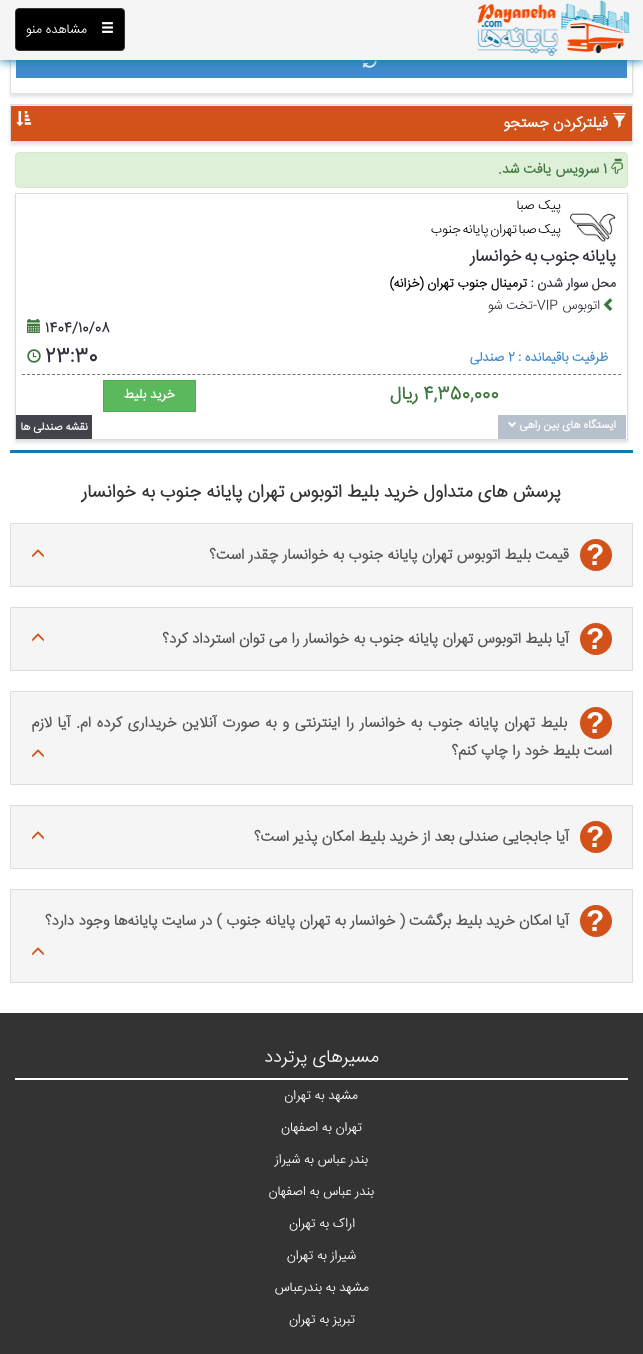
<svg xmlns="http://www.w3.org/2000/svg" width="643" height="1354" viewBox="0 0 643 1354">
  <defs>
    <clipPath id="clip1"><path d="M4 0H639V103H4ZM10-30H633V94H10Z" clip-rule="evenodd"/></clipPath>
    <filter id="blur1" x="-50%" y="-200%" width="200%" height="500%"><feGaussianBlur stdDeviation="1.5"/></filter>
    <filter id="blur2" x="-50%" y="-200%" width="200%" height="500%"><feGaussianBlur stdDeviation="5"/></filter>
    <clipPath id="clip2"><path d="M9 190H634V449H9ZM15 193H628V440H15Z" clip-rule="evenodd"/></clipPath>
  </defs>
  <rect width="100%" height="100%" fill="#ffffff"/>
  <g clip-path="url(#clip1)">
    <rect x="10" y="-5" width="623" height="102" fill="#e4e4e4" filter="url(#blur1)"/>
  </g>
  <rect x="10.5" y="-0.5" width="622" height="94" fill="none" stroke="#dfdfdf"/>
  <rect x="16" y="60" width="611" height="18" fill="#428bca"/>
  <image x="362" y="60" width="15" height="8" href="img3.png"/>
  <rect x="0" y="1" width="643" height="60" fill="#147aae" filter="url(#blur2)"/>
  <rect x="0" y="0" width="643" height="60" fill="#f5f5f5"/>
  <image x="477" y="0" width="153" height="57" href="img1.png"/>
  <rect x="15.5" y="8.5" width="109" height="42" rx="3.5" fill="#000000" stroke="#333333"/>
  <image x="102" y="22" width="11" height="11" href="img2.png"/>
  <text x="87" y="33" font-family="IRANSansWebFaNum" font-size="13" font-weight="300" direction="rtl" fill="#ffffff">مشاهده منو</text>
  <rect x="10" y="107" width="623" height="38" fill="#e4e4e4" filter="url(#blur1)"/>
  <rect x="10.5" y="104.5" width="622" height="37" fill="none" stroke="#dfdfdf"/>
  <rect x="11" y="106" width="621" height="35" fill="#d3521a"/>
  <rect x="11" y="105" width="621" height="1" fill="#ececec"/>
  <image x="613" y="113" width="13" height="15" href="img4.png"/>
  <text x="608" y="127" font-family="IRANSansWebFaNum" font-size="15" font-weight="bold" direction="rtl" fill="#ffffff">فیلترکردن جستجو</text>
  <image x="16" y="111" width="16" height="15" href="img5.png"/>
  <rect x="15.5" y="152.5" width="612" height="35" rx="3.5" fill="#dff0d8" stroke="#d6e9c6"/>
  <image x="611" y="158" width="12" height="16" href="img6.png"/>
  <text x="603" y="173" font-family="IRANSansWebFaNum" font-size="14" font-weight="bold" fill="#3c763d">1</text>
  <text x="599" y="173" font-family="IRANSansWebFaNum" font-size="14" font-weight="bold" direction="rtl" fill="#3c763d">سرویس</text>
  <text x="551" y="173" font-family="IRANSansWebFaNum" font-size="14" font-weight="bold" direction="rtl" fill="#3c763d">یافت شد.</text>
  <g clip-path="url(#clip2)">
    <rect x="15" y="196" width="613" height="247" fill="#e4e4e4" filter="url(#blur1)"/>
  </g>
  <rect x="15.5" y="193.5" width="612" height="246" fill="none" stroke="#dfdfdf"/>
  <text x="561" y="209" font-family="IRANSansWebFaNum" font-size="13" font-weight="300" direction="rtl" fill="#000000">پیک صبا</text>
  <image x="569" y="213" width="47" height="29" href="img7.png"/>
  <text x="561" y="233" word-spacing="-2" font-family="IRANSansWebFaNum" font-size="13" font-weight="300" direction="rtl" fill="#000000">پیک صبا تهران پایانه جنوب</text>
  <text x="616" y="261" font-family="IRANSansWebFaNum" font-size="17" font-weight="bold" direction="rtl" fill="#303039">پايانه</text>
  <text x="579" y="261" word-spacing="-2" font-family="IRANSansWebFaNum" font-size="17" font-weight="bold" direction="rtl" fill="#303039">جنوب به خوانسار</text>
  <text x="616" y="287" font-family="IRANSansWebFaNum" font-size="13" font-weight="bold" direction="rtl" fill="#303039">محل سوار شدن :</text>
  <text x="527" y="287" font-family="IRANSansWebFaNum" font-size="13" font-weight="bold" direction="rtl" fill="#000000">ترمینال جنوب تهران (خزانه)</text>
  <image x="603" y="298" width="10" height="13" href="img8.png"/>
  <text x="600" y="309" font-family="IRANSansWebFaNum" font-size="13" font-weight="300" direction="rtl" fill="#303039">اتوبوس</text>
  <text x="537" y="309" font-family="IRANSansWebFaNum" font-size="13" font-weight="300" direction="rtl" fill="#303039">-تخت شو</text>
  <text x="537" y="309" font-family="IRANSansWebFaNum" font-size="13" font-weight="300" fill="#303039">VIP</text>
  <path d="M22 374.5H621" fill="none" stroke="#777777" stroke-dasharray="3 2.01"/>
  <text x="45" y="332" font-family="IRANSansWebFaNum" font-size="14" font-weight="bold" fill="#303039">1404/10/08</text>
  <image x="27" y="319" width="13" height="14" href="img9.png"/>
  <text x="608" y="361" font-family="IRANSansWebFaNum" font-size="13" font-weight="bold" direction="rtl" fill="#428bca">ظرفیت باقیمانده :</text>
  <text x="508" y="361" font-family="IRANSansWebFaNum" font-size="13" font-weight="bold" fill="#428bca">2</text>
  <text x="504" y="361" font-family="IRANSansWebFaNum" font-size="13" font-weight="bold" direction="rtl" fill="#428bca">صندلی</text>
  <text x="45" y="362" font-family="IRANSansWebFaNum" font-size="20" font-weight="bold" fill="#303039">23:30</text>
  <image x="27" y="349" width="14" height="14" href="img10.png"/>
  <text x="423" y="399" font-family="IRANSansWebFaNum" font-size="18" font-weight="bold" fill="#3c763d">4,350,000</text>
  <text x="418" y="399" font-family="IRANSansWebFaNum" font-size="18" font-weight="bold" direction="rtl" fill="#3c763d">ریال</text>
  <rect x="103.5" y="380.5" width="92" height="31" fill="#5cb85c" stroke="#4cae4c"/>
  <text x="175" y="398" font-family="IRANSansWebFaNum" font-size="13" font-weight="bold" direction="rtl" fill="#ffffff">خرید بلیط</text>
  <rect x="498" y="415" width="128" height="24" fill="#b6c1cc"/>
  <text x="616" y="428" font-family="IRANSansWebFaNum" font-size="11" font-weight="bold" direction="rtl" fill="#ffffff">ایستگاه های بین راهی</text>
  <image x="508" y="421" width="8" height="6" href="img11.png"/>
  <rect x="16" y="415" width="76" height="24" fill="#43434c"/>
  <text x="88" y="430" font-family="IRANSansWebFaNum" font-size="11" font-weight="bold" direction="rtl" fill="#ffffff">نقشه صندلی ها</text>
  <rect x="10" y="450" width="623" height="3" fill="#147aae"/>
  <text x="561" y="497" font-family="IRANSansWebFaNum" font-size="18" font-weight="bold" direction="rtl" fill="#333333">پرسش های متداول خرید بلیط اتوبوس تهران پایانه جنوب</text>
  <text x="155" y="497" font-family="IRANSansWebFaNum" font-size="18" font-weight="bold" direction="rtl" fill="#333333">به</text>
  <text x="136" y="497" font-family="IRANSansWebFaNum" font-size="18" font-weight="bold" direction="rtl" fill="#333333">خوانسار</text>
  <rect x="10.5" y="523.5" width="622" height="63" fill="none" stroke="#dddddd"/>
  <rect x="11" y="524" width="621" height="62" fill="#f5f5f5"/>
  <circle cx="596" cy="555" r="16" fill="#d3521a"/>
  <text x="586" y="565" font-family="Liberation Sans" font-size="30" font-weight="bold" fill="#ffffff">?</text>
  <text x="569" y="559" font-family="IRANSansWebFaNum" font-size="15" font-weight="bold" direction="rtl" fill="#555555">قیمت بلیط اتوبوس تهران پایانه جنوب</text>
  <text x="344" y="559" font-family="IRANSansWebFaNum" font-size="15" font-weight="bold" direction="rtl" fill="#555555">به</text>
  <text x="328" y="559" font-family="IRANSansWebFaNum" font-size="15" font-weight="bold" direction="rtl" fill="#555555">خوانسار چقدر است؟</text>
  <image x="32" y="549" width="12" height="9" href="img12.png"/>
  <rect x="10.5" y="607.5" width="622" height="63" fill="none" stroke="#dddddd"/>
  <rect x="11" y="608" width="621" height="62" fill="#f5f5f5"/>
  <circle cx="596" cy="639" r="16" fill="#d3521a"/>
  <text x="586" y="649" font-family="Liberation Sans" font-size="30" font-weight="bold" fill="#ffffff">?</text>
  <text x="569" y="643" font-family="IRANSansWebFaNum" font-size="15" font-weight="bold" direction="rtl" fill="#555555">آیا بلیط اتوبوس تهران پایانه جنوب</text>
  <text x="365" y="643" font-family="IRANSansWebFaNum" font-size="15" font-weight="bold" direction="rtl" fill="#555555">به</text>
  <text x="349" y="643" font-family="IRANSansWebFaNum" font-size="15" font-weight="bold" direction="rtl" fill="#555555">خوانسار را می توان استرداد کرد؟</text>
  <image x="32" y="633" width="12" height="9" href="img12.png"/>
  <rect x="10.5" y="691.5" width="622" height="93" fill="none" stroke="#dddddd"/>
  <rect x="11" y="692" width="621" height="92" fill="#f5f5f5"/>
  <circle cx="596" cy="723" r="16" fill="#d3521a"/>
  <text x="586" y="733" font-family="Liberation Sans" font-size="30" font-weight="bold" fill="#ffffff">?</text>
  <text x="567" y="727" word-spacing="1.5" font-family="IRANSansWebFaNum" font-size="15" font-weight="bold" direction="rtl" fill="#555555">بلیط تهران پایانه جنوب</text>
  <text x="422" y="727" font-family="IRANSansWebFaNum" font-size="15" font-weight="bold" direction="rtl" fill="#555555">به</text>
  <text x="405" y="727" word-spacing="1.5" font-family="IRANSansWebFaNum" font-size="15" font-weight="bold" direction="rtl" fill="#555555">خوانسار را اینترنتی و به صورت آنلاین خریداری کرده ام. آیا لازم</text>
  <text x="612" y="755" font-family="IRANSansWebFaNum" font-size="15" font-weight="bold" direction="rtl" fill="#555555">است بلیط خود را چاپ کنم؟</text>
  <image x="32" y="749" width="12" height="9" href="img12.png"/>
  <rect x="10.5" y="805.5" width="622" height="63" fill="none" stroke="#dddddd"/>
  <rect x="11" y="806" width="621" height="62" fill="#f5f5f5"/>
  <circle cx="596" cy="837" r="16" fill="#d3521a"/>
  <text x="586" y="847" font-family="Liberation Sans" font-size="30" font-weight="bold" fill="#ffffff">?</text>
  <text x="569" y="841" font-family="IRANSansWebFaNum" font-size="15" font-weight="bold" direction="rtl" fill="#555555">آیا جابجایی صندلی بعد از خرید بلیط امکان پذیر است؟</text>
  <image x="32" y="831" width="12" height="9" href="img12.png"/>
  <rect x="10.5" y="889.5" width="622" height="93" fill="none" stroke="#dddddd"/>
  <rect x="11" y="890" width="621" height="92" fill="#f5f5f5"/>
  <circle cx="596" cy="921" r="16" fill="#d3521a"/>
  <text x="586" y="931" font-family="Liberation Sans" font-size="30" font-weight="bold" fill="#ffffff">?</text>
  <text x="569" y="925" font-family="IRANSansWebFaNum" font-size="15" font-weight="bold" direction="rtl" fill="#555555">آیا امکان خرید بلیط برگشت ( خوانسار به تهران پایانه جنوب ) در سایت پایانه‌ها وجود دارد؟</text>
  <image x="32" y="947" width="12" height="9" href="img12.png"/>
  <rect x="0" y="1013" width="643" height="341" fill="#333333"/>
  <text x="379" y="1062" font-family="IRANSansWebFaNum" font-size="18" font-weight="300" direction="rtl" fill="#ffffff">مسیرهای پرتردد</text>
  <rect x="15" y="1078" width="613" height="2" fill="#ffffff"/>
  <text x="358" y="1099" font-family="IRANSansWebFaNum" font-size="13" font-weight="300" direction="rtl" fill="#ffffff">مشهد به تهران</text>
  <text x="362" y="1131" font-family="IRANSansWebFaNum" font-size="13" font-weight="300" direction="rtl" fill="#ffffff">تهران به اصفهان</text>
  <text x="368" y="1163" font-family="IRANSansWebFaNum" font-size="13" font-weight="300" direction="rtl" fill="#ffffff">بندر</text>
  <text x="346" y="1163" font-family="IRANSansWebFaNum" font-size="13" font-weight="300" direction="rtl" fill="#ffffff">عباس به شیراز</text>
  <text x="374" y="1195" font-family="IRANSansWebFaNum" font-size="13" font-weight="300" direction="rtl" fill="#ffffff">بندر عباس به اصفهان</text>
  <text x="355" y="1227" font-family="IRANSansWebFaNum" font-size="13" font-weight="300" direction="rtl" fill="#ffffff">اراک به تهران</text>
  <text x="356" y="1259" font-family="IRANSansWebFaNum" font-size="13" font-weight="300" direction="rtl" fill="#ffffff">شیراز به تهران</text>
  <text x="369" y="1291" font-family="IRANSansWebFaNum" font-size="13" font-weight="300" direction="rtl" fill="#ffffff">مشهد به بندرعباس</text>
  <text x="355" y="1323" font-family="IRANSansWebFaNum" font-size="13" font-weight="300" direction="rtl" fill="#ffffff">تبریز به تهران</text>
</svg>
